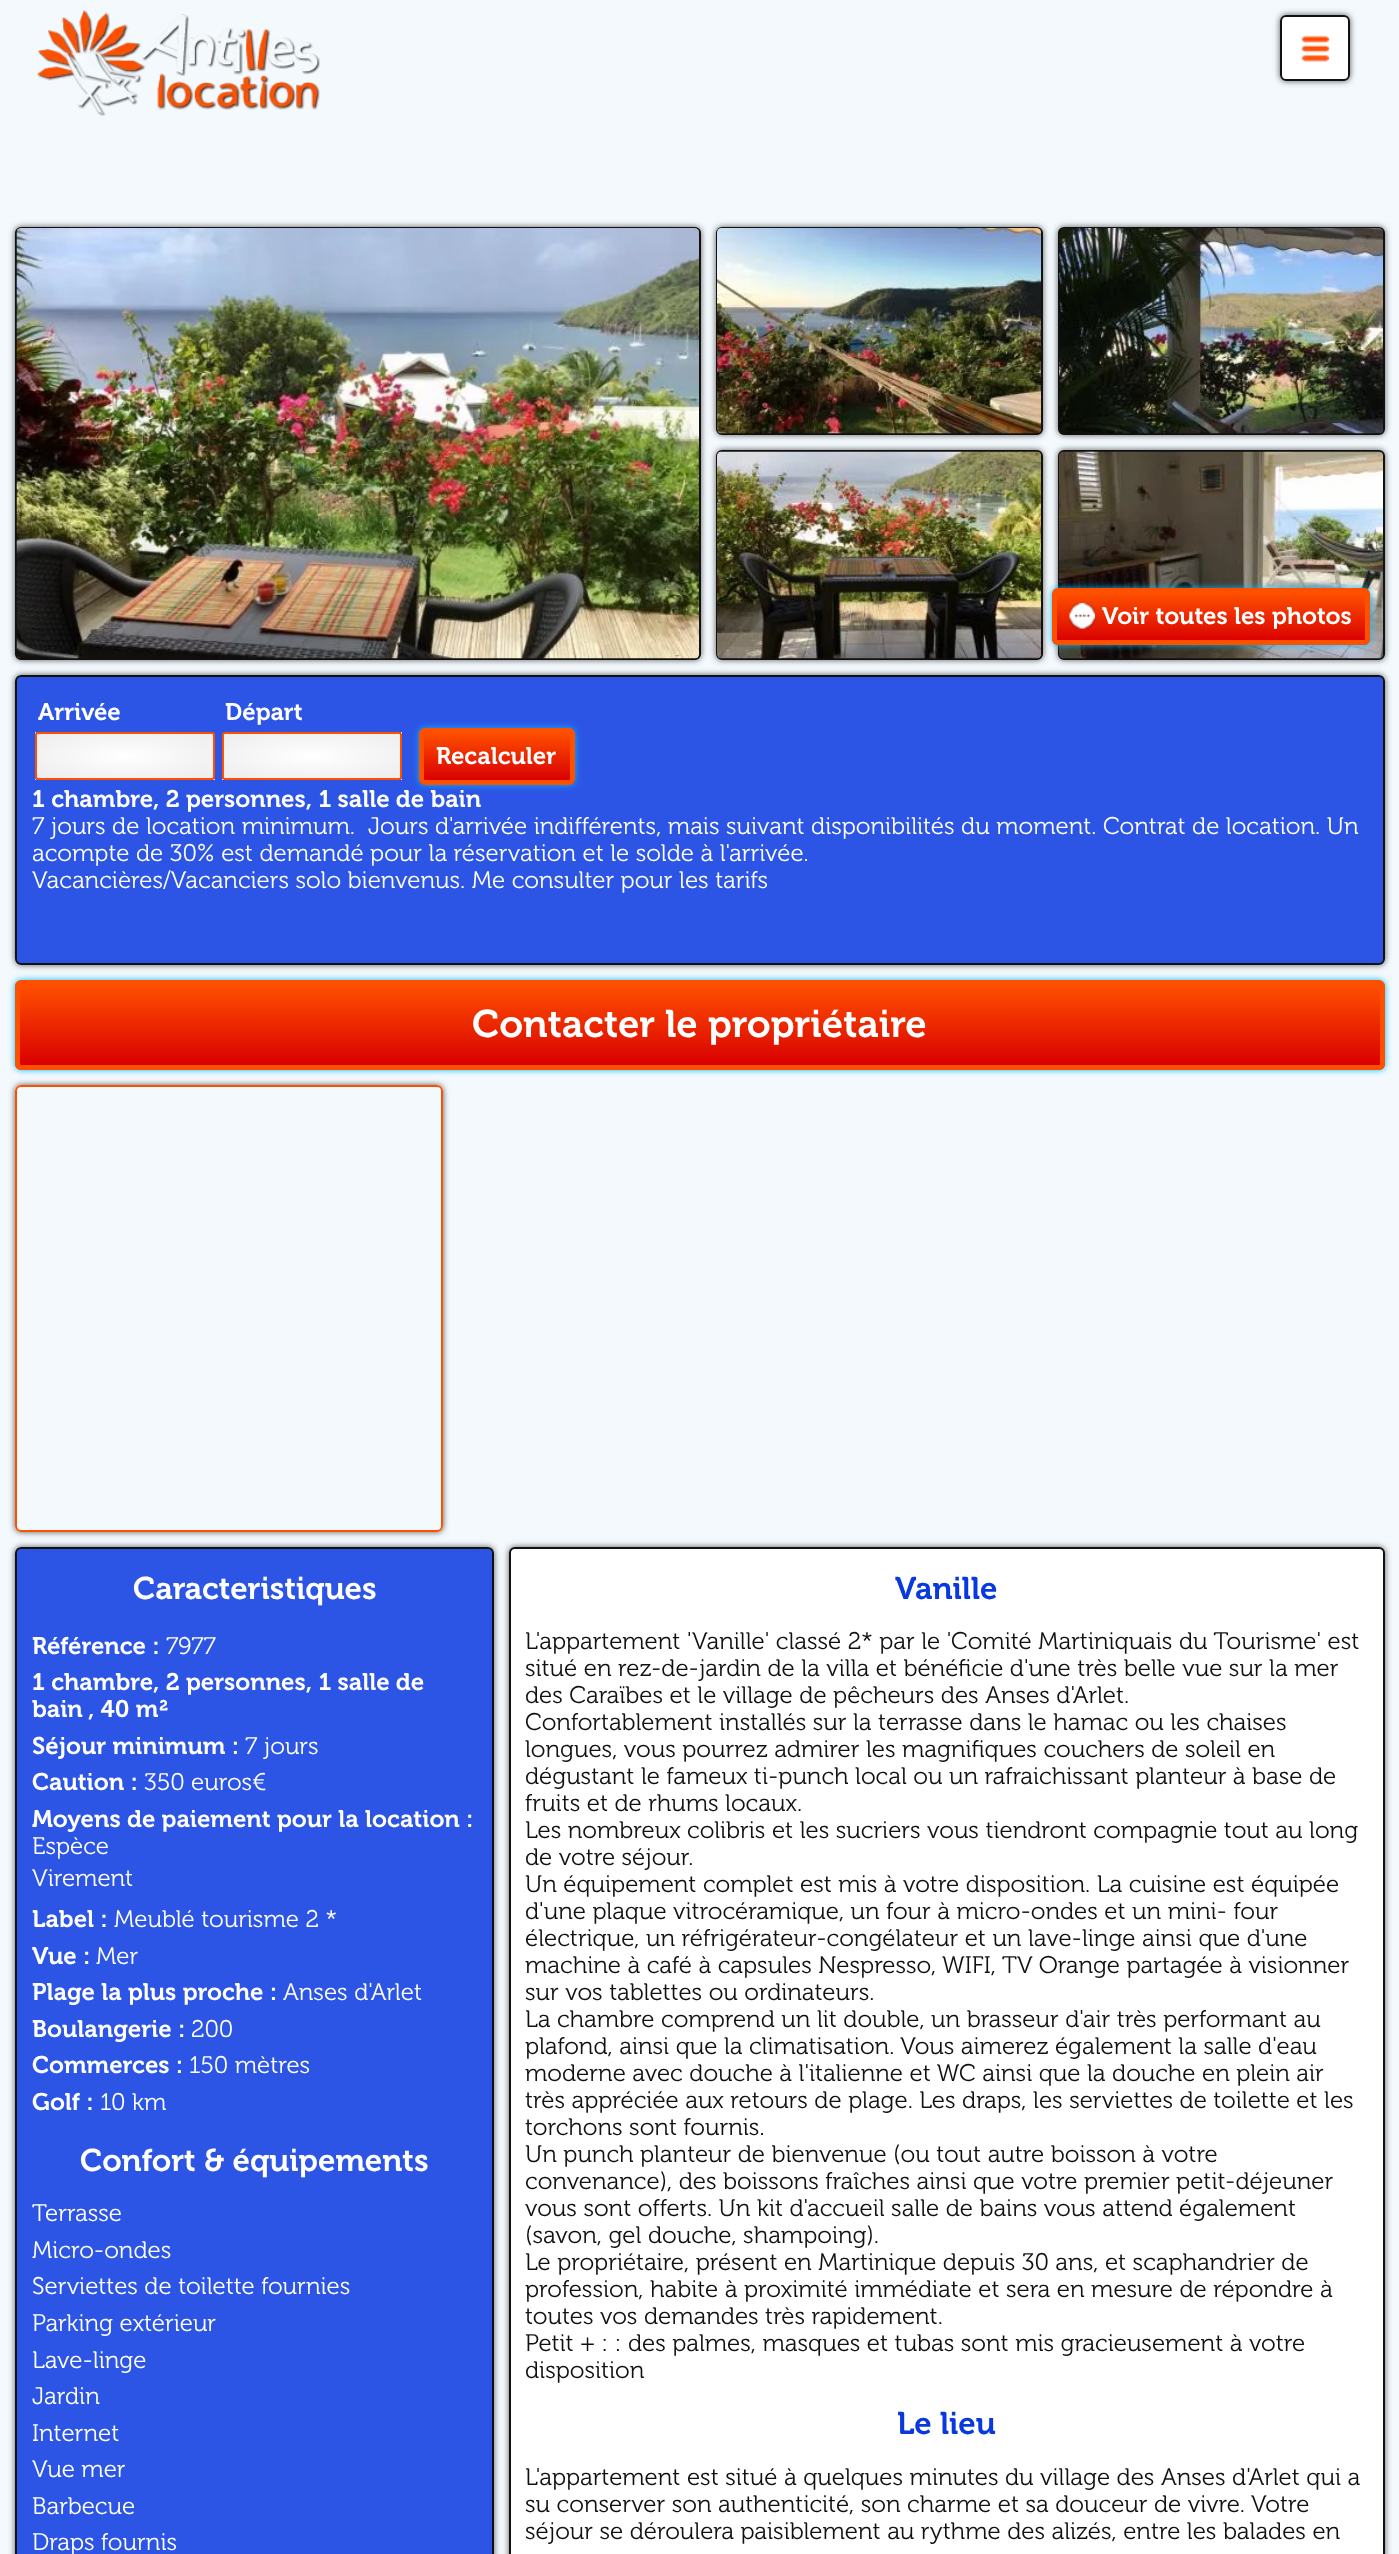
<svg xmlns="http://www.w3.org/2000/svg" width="1399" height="2554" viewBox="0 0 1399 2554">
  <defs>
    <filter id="blur1" x="-50%" y="-200%" width="200%" height="500%"><feGaussianBlur stdDeviation="3"/></filter>
    <clipPath id="clip1"><rect x="1052" y="588" width="318" height="57" rx="6"/></clipPath>
    <linearGradient id="g1" gradientUnits="userSpaceOnUse" x1="1211" y1="593" x2="1211" y2="689"><stop offset="0" stop-color="#ff5000"/><stop offset="0.5" stop-color="#d90000"/><stop offset="1" stop-color="#ff5000"/></linearGradient>
    <clipPath id="clip2"><path d="M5 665H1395V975H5ZM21 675H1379C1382.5 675 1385 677.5 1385 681V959C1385 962.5 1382.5 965 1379 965H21C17.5 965 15 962.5 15 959V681C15 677.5 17.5 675 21 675Z" clip-rule="evenodd"/></clipPath>
    <radialGradient id="g2" gradientUnits="userSpaceOnUse" cx="0" cy="0" r="1" gradientTransform="matrix(125 0 0 32 -52 711)"><stop offset="0" stop-color="#ffffff"/><stop offset="0.47" stop-color="#f6f6f6"/><stop offset="1" stop-color="#ededed"/></radialGradient>
    <radialGradient id="g3" gradientUnits="userSpaceOnUse" cx="0" cy="0" r="1" gradientTransform="matrix(125 0 0 32 125 756)"><stop offset="0" stop-color="#ffffff"/><stop offset="0.47" stop-color="#f6f6f6"/><stop offset="1" stop-color="#ededed"/></radialGradient>
    <radialGradient id="g4" gradientUnits="userSpaceOnUse" cx="0" cy="0" r="1" gradientTransform="matrix(125 0 0 32 -52 801)"><stop offset="0" stop-color="#ffffff"/><stop offset="0.47" stop-color="#f6f6f6"/><stop offset="1" stop-color="#ededed"/></radialGradient>
    <radialGradient id="g5" gradientUnits="userSpaceOnUse" cx="0" cy="0" r="1" gradientTransform="matrix(125 0 0 32 302 801)"><stop offset="0" stop-color="#ffffff"/><stop offset="0.47" stop-color="#f6f6f6"/><stop offset="1" stop-color="#ededed"/></radialGradient>
    <radialGradient id="g6" gradientUnits="userSpaceOnUse" cx="0" cy="0" r="1" gradientTransform="matrix(125 0 0 32 489 711)"><stop offset="0" stop-color="#ffffff"/><stop offset="0.47" stop-color="#f6f6f6"/><stop offset="1" stop-color="#ededed"/></radialGradient>
    <radialGradient id="g7" gradientUnits="userSpaceOnUse" cx="0" cy="0" r="1" gradientTransform="matrix(125 0 0 32 312 756)"><stop offset="0" stop-color="#ffffff"/><stop offset="0.47" stop-color="#f6f6f6"/><stop offset="1" stop-color="#ededed"/></radialGradient>
    <radialGradient id="g8" gradientUnits="userSpaceOnUse" cx="0" cy="0" r="1" gradientTransform="matrix(125 0 0 32 135 801)"><stop offset="0" stop-color="#ffffff"/><stop offset="0.47" stop-color="#f6f6f6"/><stop offset="1" stop-color="#ededed"/></radialGradient>
    <radialGradient id="g9" gradientUnits="userSpaceOnUse" cx="0" cy="0" r="1" gradientTransform="matrix(125 0 0 32 489 801)"><stop offset="0" stop-color="#ffffff"/><stop offset="0.47" stop-color="#f6f6f6"/><stop offset="1" stop-color="#ededed"/></radialGradient>
    <clipPath id="clip3"><rect x="419" y="728" width="156" height="57" rx="6"/></clipPath>
    <linearGradient id="g10" gradientUnits="userSpaceOnUse" x1="497" y1="732" x2="497" y2="828"><stop offset="0" stop-color="#ff5000"/><stop offset="0.5" stop-color="#d90000"/><stop offset="1" stop-color="#ff5000"/></linearGradient>
    <clipPath id="clip4"><rect x="15" y="980" width="1370" height="90" rx="6"/></clipPath>
    <linearGradient id="g11" gradientUnits="userSpaceOnUse" x1="700" y1="984" x2="700" y2="1146"><stop offset="0" stop-color="#ff5000"/><stop offset="0.5" stop-color="#d90000"/><stop offset="1" stop-color="#ff5000"/></linearGradient>
    <clipPath id="clip5"><path d="M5 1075H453V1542H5ZM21 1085H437C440.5 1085 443 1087.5 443 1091V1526C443 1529.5 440.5 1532 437 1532H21C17.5 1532 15 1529.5 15 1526V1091C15 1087.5 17.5 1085 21 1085Z" clip-rule="evenodd"/></clipPath>
    <clipPath id="clip6"><path d="M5 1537H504V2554H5ZM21 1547H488C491.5 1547 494 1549.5 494 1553V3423C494 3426.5 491.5 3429 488 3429H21C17.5 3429 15 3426.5 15 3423V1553C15 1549.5 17.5 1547 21 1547Z" clip-rule="evenodd"/></clipPath>
  </defs>
  <rect width="100%" height="100%" fill="#f3f9fd"/>
  <image x="37" y="10" width="283" height="106" href="img1.png"/>
  <rect x="1280" y="15" width="70" height="66" rx="6" fill="#575757" filter="url(#blur1)"/>
  <rect x="1280" y="15" width="70" height="66" rx="6" fill="#ffffff"/>
  <image x="1301" y="35" width="44" height="46" href="img2.png"/>
  <rect x="1281" y="16" width="68" height="64" rx="5" fill="none" stroke="#111111" stroke-width="2"/>
  <rect x="15" y="227" width="686" height="433" rx="6" fill="#575757" filter="url(#blur1)"/>
  <rect x="16" y="228" width="684" height="431" rx="5" fill="none" stroke="#111111" stroke-width="2"/>
  <image x="16" y="228" width="683" height="431" href="img3.png"/>
  <rect x="716" y="227" width="327" height="208" rx="6" fill="#575757" filter="url(#blur1)"/>
  <rect x="717" y="228" width="325" height="206" rx="5" fill="none" stroke="#111111" stroke-width="2"/>
  <image x="717" y="228" width="324" height="206" href="img4.png"/>
  <rect x="1058" y="227" width="327" height="208" rx="6" fill="#575757" filter="url(#blur1)"/>
  <rect x="1059" y="228" width="325" height="206" rx="5" fill="none" stroke="#111111" stroke-width="2"/>
  <image x="1059" y="228" width="324" height="206" href="img5.png"/>
  <rect x="716" y="450" width="327" height="210" rx="6" fill="#575757" filter="url(#blur1)"/>
  <rect x="717" y="451" width="325" height="208" rx="5" fill="none" stroke="#111111" stroke-width="2"/>
  <image x="717" y="451" width="324" height="208" href="img6.png"/>
  <rect x="1058" y="450" width="327" height="210" rx="6" fill="#575757" filter="url(#blur1)"/>
  <rect x="1059" y="451" width="325" height="208" rx="5" fill="none" stroke="#111111" stroke-width="2"/>
  <image x="1059" y="451" width="324" height="208" href="img7.png"/>
  <rect x="1052" y="588" width="318" height="57" rx="6" fill="#01b9ff" filter="url(#blur1)"/>
  <g clip-path="url(#clip1)">
    <path d="M1052 593H1370V639C1370 642.5 1367.5 645 1364 645H1058C1054.5 645 1052 642.5 1052 639Z" fill="url(#g1)"/>
  </g>
  <rect x="1054.5" y="590.5" width="313" height="52" rx="3.5" fill="none" stroke="#ff5000" stroke-width="5"/>
  <image x="1069" y="603" width="26" height="26" href="img8.png"/>
  <text x="1102" y="624" font-family="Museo" font-size="24" font-weight="600" fill="#ffffff">Voir toutes les photos</text>
  <g clip-path="url(#clip2)">
    <rect x="15" y="675" width="1370" height="290" rx="6" fill="#575757" filter="url(#blur1)"/>
  </g>
  <rect x="16" y="676" width="1368" height="288" rx="5" fill="#0838e0" fill-opacity="0.85" stroke="#111111" stroke-width="2"/>
  <text x="38" y="720" font-family="Museo" font-size="24" font-weight="600" fill="#ffffff">Arrivée</text>
  <rect x="35" y="732" width="1" height="2" fill="url(#g2)"/>
  <rect x="37" y="734" width="176" height="44" fill="url(#g3)"/>
  <rect x="35" y="779" width="1" height="1" fill="url(#g4)"/>
  <rect x="213" y="779" width="2" height="1" fill="url(#g5)"/>
  <rect x="36" y="733" width="178" height="46" rx="2" fill="none" stroke="#ff5000" stroke-width="2"/>
  <text x="225" y="720" font-family="Museo" font-size="24" font-weight="600" fill="#ffffff">Départ</text>
  <rect x="401" y="732" width="1" height="2" fill="url(#g6)"/>
  <rect x="224" y="734" width="176" height="44" fill="url(#g7)"/>
  <rect x="222" y="779" width="2" height="1" fill="url(#g8)"/>
  <rect x="401" y="779" width="1" height="1" fill="url(#g9)"/>
  <rect x="223" y="733" width="178" height="46" rx="2" fill="none" stroke="#ff5000" stroke-width="2"/>
  <rect x="419" y="728" width="156" height="57" rx="6" fill="#01b9ff" filter="url(#blur1)"/>
  <g clip-path="url(#clip3)">
    <path d="M419 732H575V779C575 782.5 572.5 785 569 785H425C421.5 785 419 782.5 419 779Z" fill="url(#g10)"/>
  </g>
  <rect x="421.5" y="730.5" width="151" height="52" rx="3.5" fill="none" stroke="#ff5000" stroke-width="5"/>
  <text x="436" y="764" font-family="Museo" font-size="24" font-weight="600" fill="#ffffff">Recalculer</text>
  <text x="32" y="807" font-family="Museo" font-size="24" font-weight="600" fill="#ffffff">1 chambre, 2 personnes, 1 salle de bain</text>
  <text x="32" y="834" font-family="Museo" font-size="24" font-weight="300" fill="#ffffff" xml:space="preserve">7 jours de location minimum.  Jours d'arrivée indifférents, mais suivant disponibilités du moment. Contrat de location. Un</text>
  <text x="32" y="861" font-family="Museo" font-size="24" font-weight="300" fill="#ffffff">acompte de 30% est demandé pour la réservation et le solde à l'arrivée.</text>
  <text x="32" y="888" font-family="Museo" font-size="24" font-weight="300" fill="#ffffff">Vacancières/Vacanciers solo bienvenus. Me consulter pour les tarifs</text>
  <rect x="15" y="980" width="1370" height="90" rx="6" fill="#01b9ff" filter="url(#blur1)"/>
  <g clip-path="url(#clip4)">
    <path d="M15 984H1385V1064C1385 1067.5 1382.5 1070 1379 1070H21C17.5 1070 15 1067.5 15 1064Z" fill="url(#g11)"/>
  </g>
  <rect x="17.5" y="982.5" width="1365" height="85" rx="3.5" fill="none" stroke="#ff5000" stroke-width="5"/>
  <text x="472" y="1037" font-family="Museo" font-size="38.4" font-weight="600" fill="#ffffff">Contacter le propriétaire</text>
  <g clip-path="url(#clip5)">
    <rect x="15" y="1085" width="428" height="447" rx="6" fill="#575757" filter="url(#blur1)"/>
  </g>
  <rect x="16" y="1086" width="426" height="445" rx="5" fill="none" stroke="#ff5000" stroke-width="2"/>
  <g clip-path="url(#clip6)">
    <rect x="15" y="1547" width="479" height="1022" rx="6" fill="#575757" filter="url(#blur1)"/>
  </g>
  <rect x="16" y="1548" width="477" height="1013" rx="5" fill="#0838e0" fill-opacity="0.85" stroke="#111111" stroke-width="2"/>
  <text x="133" y="1599" font-family="Museo" font-size="31.25" font-weight="600" fill="#ffffff">Caracteristiques</text>
  <text x="32" y="1654" font-family="Museo" font-size="24" font-weight="600" fill="#ffffff">Référence :</text>
  <text x="166" y="1654" font-family="Museo" font-size="24" font-weight="300" fill="#ffffff">7977</text>
  <text x="32" y="1690" font-family="Museo" font-size="24" font-weight="600" fill="#ffffff">1 chambre, 2 personnes, 1 salle de</text>
  <text x="32" y="1717" font-family="Museo" font-size="24" font-weight="600" fill="#ffffff">bain , 40 m²</text>
  <text x="32" y="1754" font-family="Museo" font-size="24" font-weight="600" fill="#ffffff">Séjour minimum :</text>
  <text x="245" y="1754" font-family="Museo" font-size="24" font-weight="300" fill="#ffffff">7 jours</text>
  <text x="32" y="1790" font-family="Museo" font-size="24" font-weight="600" fill="#ffffff">Caution :</text>
  <text x="144" y="1790" font-family="Museo" font-size="24" font-weight="300" fill="#ffffff">350 euros€</text>
  <text x="32" y="1827" font-family="Museo" font-size="24" font-weight="600" fill="#ffffff">Moyens de paiement pour la location :</text>
  <text x="32" y="1854" font-family="Museo" font-size="24" font-weight="300" fill="#ffffff">Espèce</text>
  <text x="32" y="1886" font-family="Museo" font-size="24" font-weight="300" fill="#ffffff">Virement</text>
  <text x="32" y="1927" font-family="Museo" font-size="24" font-weight="600" fill="#ffffff">Label :</text>
  <text x="114" y="1927" font-family="Museo" font-size="24" font-weight="300" fill="#ffffff">Meublé tourisme 2 *</text>
  <text x="32" y="1964" font-family="Museo" font-size="24" font-weight="600" fill="#ffffff">Vue :</text>
  <text x="96" y="1964" font-family="Museo" font-size="24" font-weight="300" fill="#ffffff">Mer</text>
  <text x="32" y="2000" font-family="Museo" font-size="24" font-weight="600" fill="#ffffff">Plage la plus proche :</text>
  <text x="283" y="2000" font-family="Museo" font-size="24" font-weight="300" fill="#ffffff">Anses d'Arlet</text>
  <text x="32" y="2037" font-family="Museo" font-size="24" font-weight="600" fill="#ffffff">Boulangerie :</text>
  <text x="191" y="2037" font-family="Museo" font-size="24" font-weight="300" fill="#ffffff">200</text>
  <text x="32" y="2073" font-family="Museo" font-size="24" font-weight="600" fill="#ffffff">Commerces :</text>
  <text x="189" y="2073" font-family="Museo" font-size="24" font-weight="300" fill="#ffffff">150 mètres</text>
  <text x="32" y="2110" font-family="Museo" font-size="24" font-weight="600" fill="#ffffff">Golf :</text>
  <text x="100" y="2110" font-family="Museo" font-size="24" font-weight="300" fill="#ffffff">10 km</text>
  <text x="80" y="2171" font-family="Museo" font-size="31.25" font-weight="600" fill="#ffffff">Confort &amp; équipements</text>
  <text x="32" y="2221" font-family="Museo" font-size="24" font-weight="300" fill="#ffffff">Terrasse</text>
  <text x="32" y="2258" font-family="Museo" font-size="24" font-weight="300" fill="#ffffff">Micro-ondes</text>
  <text x="32" y="2294" font-family="Museo" font-size="24" font-weight="300" fill="#ffffff">Serviettes de toilette fournies</text>
  <text x="32" y="2331" font-family="Museo" font-size="24" font-weight="300" fill="#ffffff">Parking extérieur</text>
  <text x="32" y="2368" font-family="Museo" font-size="24" font-weight="300" fill="#ffffff">Lave-linge</text>
  <text x="32" y="2404" font-family="Museo" font-size="24" font-weight="300" fill="#ffffff">Jardin</text>
  <text x="32" y="2441" font-family="Museo" font-size="24" font-weight="300" fill="#ffffff">Internet</text>
  <text x="32" y="2477" font-family="Museo" font-size="24" font-weight="300" fill="#ffffff">Vue mer</text>
  <text x="32" y="2514" font-family="Museo" font-size="24" font-weight="300" fill="#ffffff">Barbecue</text>
  <text x="32" y="2550" font-family="Museo" font-size="24" font-weight="300" fill="#ffffff">Draps fournis</text>
  <rect x="509" y="1547" width="876" height="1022" rx="6" fill="#575757" filter="url(#blur1)"/>
  <rect x="510" y="1548" width="874" height="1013" rx="5" fill="#ffffff" stroke="#111111" stroke-width="2"/>
  <text x="895" y="1599" font-family="Museo" font-size="31.25" font-weight="600" fill="#0838e0">Vanille</text>
  <text x="525" y="1649" font-family="Museo" font-size="24" font-weight="300" fill="#111111">L'appartement 'Vanille' classé 2* par le 'Comité Martiniquais du Tourisme' est</text>
  <text x="525" y="1676" font-family="Museo" font-size="24" font-weight="300" fill="#111111">situé en rez-de-jardin de la villa et bénéficie d'une très belle vue sur la mer</text>
  <text x="525" y="1703" font-family="Museo" font-size="24" font-weight="300" fill="#111111">des Caraïbes et le village de pêcheurs des Anses d'Arlet.</text>
  <text x="525" y="1730" font-family="Museo" font-size="24" font-weight="300" fill="#111111">Confortablement installés sur la terrasse dans le hamac ou les chaises</text>
  <text x="525" y="1757" font-family="Museo" font-size="24" font-weight="300" fill="#111111">longues, vous pourrez admirer les magnifiques couchers de soleil en</text>
  <text x="525" y="1784" font-family="Museo" font-size="24" font-weight="300" fill="#111111">dégustant le fameux ti-punch local ou un rafraichissant planteur à base de</text>
  <text x="525" y="1811" font-family="Museo" font-size="24" font-weight="300" fill="#111111">fruits et de rhums locaux.</text>
  <text x="525" y="1838" font-family="Museo" font-size="24" font-weight="300" fill="#111111">Les nombreux colibris et les sucriers vous tiendront compagnie tout au long</text>
  <text x="525" y="1865" font-family="Museo" font-size="24" font-weight="300" fill="#111111">de votre séjour.</text>
  <text x="525" y="1892" font-family="Museo" font-size="24" font-weight="300" fill="#111111">Un équipement complet est mis à votre disposition. La cuisine est équipée</text>
  <text x="525" y="1919" font-family="Museo" font-size="24" font-weight="300" fill="#111111">d'une plaque vitrocéramique, un four à micro-ondes et un mini- four</text>
  <text x="525" y="1946" font-family="Museo" font-size="24" font-weight="300" fill="#111111">électrique, un réfrigérateur-congélateur et un lave-linge ainsi que d'une</text>
  <text x="525" y="1973" font-family="Museo" font-size="24" font-weight="300" fill="#111111">machine à café à capsules Nespresso, WIFI, TV Orange partagée à visionner</text>
  <text x="525" y="2000" font-family="Museo" font-size="24" font-weight="300" fill="#111111">sur vos tablettes ou ordinateurs.</text>
  <text x="525" y="2027" font-family="Museo" font-size="24" font-weight="300" fill="#111111">La chambre comprend un lit double, un brasseur d'air très performant au</text>
  <text x="525" y="2054" font-family="Museo" font-size="24" font-weight="300" fill="#111111">plafond, ainsi que la climatisation. Vous aimerez également la salle d'eau</text>
  <text x="525" y="2081" font-family="Museo" font-size="24" font-weight="300" fill="#111111">moderne avec douche à l'italienne et WC ainsi que la douche en plein air</text>
  <text x="525" y="2108" font-family="Museo" font-size="24" font-weight="300" fill="#111111">très appréciée aux retours de plage. Les draps, les serviettes de toilette et les</text>
  <text x="525" y="2135" font-family="Museo" font-size="24" font-weight="300" fill="#111111">torchons sont fournis.</text>
  <text x="525" y="2162" font-family="Museo" font-size="24" font-weight="300" fill="#111111">Un punch planteur de bienvenue (ou tout autre boisson à votre</text>
  <text x="525" y="2189" font-family="Museo" font-size="24" font-weight="300" fill="#111111">convenance), des boissons fraîches ainsi que votre premier petit-déjeuner</text>
  <text x="525" y="2216" font-family="Museo" font-size="24" font-weight="300" fill="#111111">vous sont offerts. Un kit d'accueil salle de bains vous attend également</text>
  <text x="525" y="2243" font-family="Museo" font-size="24" font-weight="300" fill="#111111">(savon, gel douche, shampoing).</text>
  <text x="525" y="2270" font-family="Museo" font-size="24" font-weight="300" fill="#111111">Le propriétaire, présent en Martinique depuis 30 ans, et scaphandrier de</text>
  <text x="525" y="2297" font-family="Museo" font-size="24" font-weight="300" fill="#111111">profession, habite à proximité immédiate et sera en mesure de répondre à</text>
  <text x="525" y="2324" font-family="Museo" font-size="24" font-weight="300" fill="#111111">toutes vos demandes très rapidement.</text>
  <text x="525" y="2351" font-family="Museo" font-size="24" font-weight="300" fill="#111111">Petit + : : des palmes, masques et tubas sont mis gracieusement à votre</text>
  <text x="525" y="2378" font-family="Museo" font-size="24" font-weight="300" fill="#111111">disposition</text>
  <text x="897" y="2434" font-family="Museo" font-size="31.25" font-weight="600" fill="#0838e0">Le lieu</text>
  <text x="525" y="2485" font-family="Museo" font-size="24" font-weight="300" fill="#111111">L'appartement est situé à quelques minutes du village des Anses d'Arlet qui a</text>
  <text x="525" y="2512" font-family="Museo" font-size="24" font-weight="300" fill="#111111">su conserver son authenticité, son charme et sa douceur de vivre. Votre</text>
  <text x="525" y="2539" font-family="Museo" font-size="24" font-weight="300" fill="#111111">séjour se déroulera paisiblement au rythme des alizés, entre les balades en</text>
</svg>
